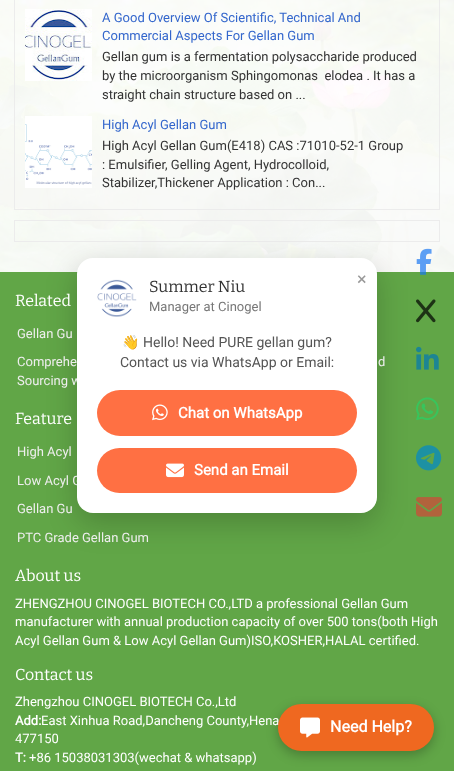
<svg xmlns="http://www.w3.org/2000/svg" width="454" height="771">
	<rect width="100%" height="100%" fill="#FFFFFF" />
	<image x="0" y="0" width="454" height="272" href="assets/img1.png" />
	<rect x="14.5" y="-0.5" width="425" height="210" fill="none" stroke="#ECECEC" />
	<image x="25" y="9" width="67" height="72" href="assets/img2.png" />
	<g font-family="Roboto" font-size="13" fill="#3366CC">
		<text x="102" y="22">A Good Overview Of Scientific, Technical And</text>
		<text x="102" y="40">Commercial Aspects For Gellan Gum</text>
	</g>
	<g font-family="Roboto" font-size="13" fill="#333333">
		<text x="102" y="61">Gellan gum is a fermentation polysaccharide produced</text>
		<text x="102" y="80" xml:space="preserve">by the microorganism Sphingomonas  elodea . It has a</text>
		<text x="102" y="99">straight chain structure based on ...</text>
	</g>
	<image x="25" y="116" width="67" height="72" href="assets/img3.png" />
	<text x="102" y="129" font-family="Roboto" font-size="13" fill="#3366CC">High Acyl Gellan Gum</text>
	<g font-family="Roboto" font-size="13" fill="#333333">
		<text x="102" y="150">High Acyl Gellan Gum(E418) CAS :71010-52-1 Group</text>
		<text x="102" y="169">: Emulsifier, Gelling Agent, Hydrocolloid,</text>
		<text x="102" y="187">Stabilizer,Thickener Application : Con...</text>
	</g>
	<rect x="14.5" y="220.5" width="425" height="21" fill="none" stroke="#ECECEC" />
	<rect x="0" y="272" width="454" height="499" fill="#61A647" />
	<rect x="77" y="268" width="300" height="255" rx="16" fill="#000000" fill-opacity="0.2" filter="blur(15px)" />
	<g font-family="Roboto" font-size="13" fill="#EEEEEE">
		<text x="17" y="385">Sourcing w</text>
		<text x="17" y="485">Low Acyl G</text>
	</g>
	<rect x="77" y="258" width="300" height="255" rx="16" fill="#FFFFFF" />
	<image x="97" y="279" width="40" height="38" href="assets/img4.png" />
	<text x="149" y="292" font-family="Bitter" font-size="16" font-weight="100" fill="#333333">Summer Niu</text>
	<text x="149" y="311" font-family="Roboto" font-size="13" fill="#777777">Manager at Cinogel</text>
	<text x="357" y="285" font-family="Roboto" font-size="18" fill="#999999">×</text>
	<text x="122" y="347" font-family="Noto Color Emoji" font-size="14" fill="#555555">👋</text>
	<g font-family="Roboto" font-size="14" fill="#555555">
		<text x="143" y="347">Hello! Need PURE gellan gum?</text>
		<text x="120" y="367">Contact us via WhatsApp or Email:</text>
	</g>
	<rect x="97" y="390" width="260" height="46" rx="23" fill="#FF7043" />
	<image x="152" y="404" width="16" height="17" href="assets/img5.png" />
	<text x="178" y="418" font-family="Roboto" font-size="15" font-weight="700" fill="#FFFFFF">Chat on WhatsApp</text>
	<rect x="97" y="448" width="260" height="45" rx="22.5" fill="#FF7043" />
	<image x="166" y="463" width="18" height="15" href="assets/img6.png" />
	<text x="194" y="475" font-family="Roboto" font-size="15" font-weight="700" fill="#FFFFFF">Send an Email</text>
	<rect x="278" y="708" width="156" height="47" rx="23.5" fill="#000000" fill-opacity="0.25" filter="blur(6px)" />
	<text x="41" y="725" font-family="Roboto" font-size="13" fill="#FFFFFF">East Xinhua Road,Dancheng County,Hena</text>
	<rect x="278" y="704" width="156" height="47" rx="23.5" fill="#EF6820" />
	<image x="300" y="717" width="20" height="21" href="assets/img7.png" />
	<text x="330" y="732" font-family="Roboto" font-size="16" font-weight="700" fill="#FFFFFF">Need Help?</text>
	<text x="15" y="306" font-family="Bitter" font-size="16" font-weight="100" fill="#FFFFFF">Related</text>
	<g font-family="Roboto" font-size="13" fill="#EEEEEE">
		<text x="17" y="338">Gellan Gu</text>
		<text x="17" y="366">Comprehe</text>
		<text x="378" y="366">d</text>
	</g>
	<text x="15" y="424" font-family="Bitter" font-size="16" font-weight="100" fill="#FFFFFF">Feature</text>
	<g font-family="Roboto" font-size="13" fill="#EEEEEE">
		<text x="17" y="456">High Acyl</text>
		<text x="17" y="513">Gellan Gu</text>
		<text x="17" y="542">PTC Grade Gellan Gum</text>
	</g>
	<image x="416" y="248" width="16" height="27" href="assets/img8.png" />
	<image x="416" y="299" width="20" height="24" href="assets/img9.png" />
	<image x="416" y="346" width="23" height="24" href="assets/img10.png" />
	<image x="416" y="397" width="23" height="23" href="assets/img11.png" />
	<image x="416" y="445" width="26" height="26" href="assets/img12.png" />
	<image x="416" y="497" width="26" height="20" href="assets/img13.png" />
	<text x="15" y="581" font-family="Bitter" font-size="16" font-weight="100" fill="#FFFFFF">About us</text>
	<g font-family="Roboto" font-size="13" fill="#FFFFFF">
		<text x="15" y="608">ZHENGZHOU CINOGEL BIOTECH CO.,LTD a professional Gellan Gum</text>
		<text x="15" y="626">manufacturer with annual production capacity of over 500 tons(both High</text>
		<text x="15" y="645">Acyl Gellan Gum &amp; Low Acyl Gellan Gum)ISO,KOSHER,HALAL certified.</text>
	</g>
	<text x="15" y="680" font-family="Bitter" font-size="16" font-weight="100" fill="#FFFFFF">Contact us</text>
	<text x="15" y="706" font-family="Roboto" font-size="13" fill="#FFFFFF">Zhengzhou CINOGEL BIOTECH Co.,Ltd</text>
	<text x="15" y="725" font-family="Roboto" font-size="13" font-weight="700" fill="#FFFFFF">Add:</text>
	<text x="15" y="743" font-family="Roboto" font-size="13" fill="#FFFFFF">477150</text>
	<text x="15" y="762" font-family="Roboto" font-size="13" font-weight="700" fill="#FFFFFF">T:</text>
	<text x="29" y="762" font-family="Roboto" font-size="13" fill="#FFFFFF">+86 15038031303(wechat &amp; whatsapp)</text>
</svg>
